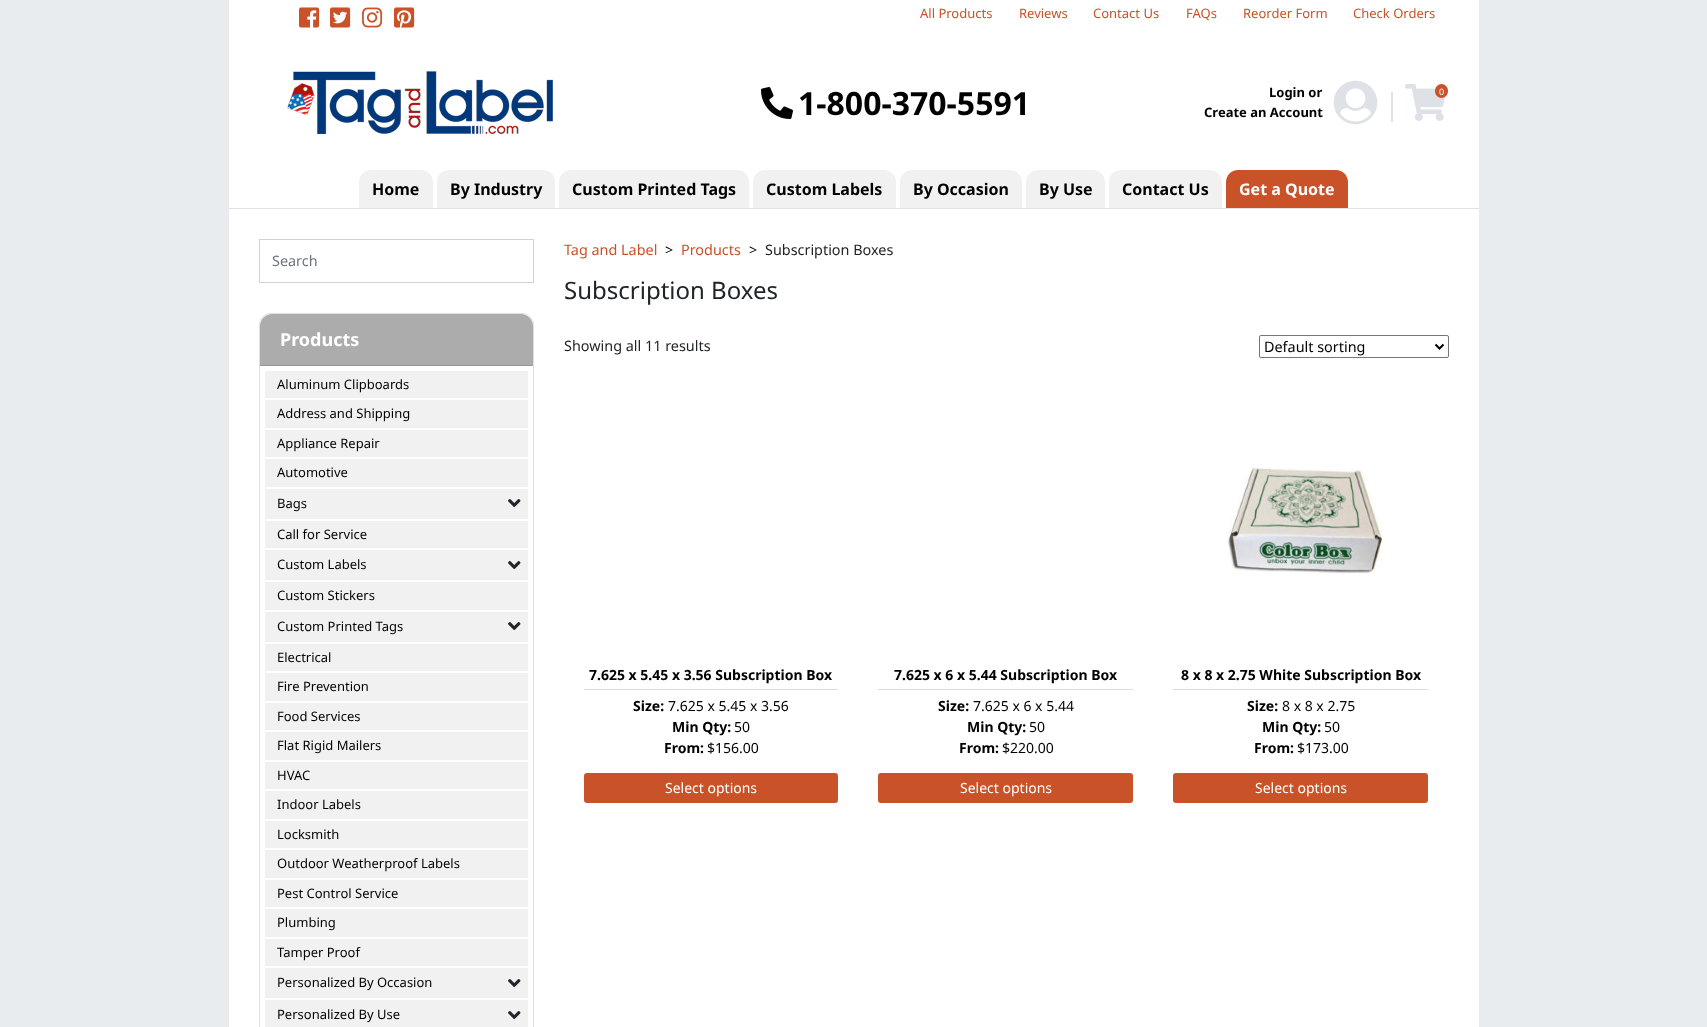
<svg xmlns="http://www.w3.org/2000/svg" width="1707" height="1027">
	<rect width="100%" height="100%" fill="#E9ECEF" />
	<rect x="229" y="0" width="1250" height="1027" fill="#FFFFFF" />
	<image x="299" y="7" width="21" height="21" href="assets/img1.png" />
	<image x="330" y="7" width="21" height="21" href="assets/img2.png" />
	<image x="362" y="7" width="21" height="21" href="assets/img3.png" />
	<image x="394" y="7" width="21" height="21" href="assets/img4.png" />
	<g font-family="Noto Sans" font-size="13" fill="#C95228">
		<text x="920" y="18">All Products</text>
		<text x="1019" y="18">Reviews</text>
		<text x="1093" y="18">Contact Us</text>
		<text x="1186" y="18">FAQs</text>
		<text x="1243" y="18">Reorder Form</text>
		<text x="1353" y="18">Check Orders</text>
	</g>
	<image x="287" y="69" width="266" height="68" href="assets/img5.png" />
	<image x="761" y="87" width="32" height="32" href="assets/img6.png" />
	<text x="798" y="115" font-family="Noto Sans" font-size="32" font-weight="700" fill="#000000">1-800-370-5591</text>
	<g font-family="Noto Sans" font-size="13" font-weight="700" fill="#000000">
		<text x="1269" y="97">Login or</text>
		<text x="1204" y="117">Create an Account</text>
	</g>
	<image x="1333" y="80" width="45" height="45" href="assets/img7.png" />
	<rect x="1391" y="92" width="2" height="30" fill="#DEE2E6" />
	<image x="1405" y="84" width="41" height="37" href="assets/img8.png" />
	<rect x="1435" y="84" width="13" height="14" rx="6.5" fill="#C95228" />
	<text x="1439" y="95" font-family="Noto Sans" font-size="9" fill="#FFFFFF">0</text>
	<rect x="229" y="208" width="1250" height="1" fill="#DEE2E6" />
	<path d="M371 170H421C427.5 170 433 175.5 433 182V208H359V182C359 175.5 364.5 170 371 170Z" fill="#F1F1F1" />
	<text x="372" y="195" font-family="Noto Sans" font-size="16" font-weight="700" fill="#000000">Home</text>
	<path d="M449 170H543C549.5 170 555 175.5 555 182V208H437V182C437 175.5 442.5 170 449 170Z" fill="#F1F1F1" />
	<text x="450" y="195" font-family="Noto Sans" font-size="16" font-weight="700" fill="#000000">By Industry</text>
	<path d="M571 170H737C743.5 170 749 175.5 749 182V208H559V182C559 175.5 564.5 170 571 170Z" fill="#F1F1F1" />
	<text x="572" y="195" font-family="Noto Sans" font-size="16" font-weight="700" fill="#000000">Custom Printed Tags</text>
	<path d="M765 170H884C890.5 170 896 175.5 896 182V208H753V182C753 175.5 758.5 170 765 170Z" fill="#F1F1F1" />
	<text x="766" y="195" font-family="Noto Sans" font-size="16" font-weight="700" fill="#000000">Custom Labels</text>
	<path d="M912 170H1010C1016.5 170 1022 175.5 1022 182V208H900V182C900 175.5 905.5 170 912 170Z" fill="#F1F1F1" />
	<text x="913" y="195" font-family="Noto Sans" font-size="16" font-weight="700" fill="#000000">By Occasion</text>
	<path d="M1038 170H1093C1099.5 170 1105 175.5 1105 182V208H1026V182C1026 175.5 1031.5 170 1038 170Z" fill="#F1F1F1" />
	<text x="1039" y="195" font-family="Noto Sans" font-size="16" font-weight="700" fill="#000000">By Use</text>
	<path d="M1121 170H1210C1216.5 170 1222 175.5 1222 182V208H1109V182C1109 175.5 1114.5 170 1121 170Z" fill="#F1F1F1" />
	<text x="1122" y="195" font-family="Noto Sans" font-size="16" font-weight="700" fill="#000000">Contact Us</text>
	<path d="M1238 170H1336C1342.5 170 1348 175.5 1348 182V208H1226V182C1226 175.5 1231.5 170 1238 170Z" fill="#C95228" />
	<text x="1239" y="195" font-family="Noto Sans" font-size="16" font-weight="700" fill="#FFFFFF">Get a Quote</text>
	<rect x="259.5" y="239.5" width="274" height="43" fill="none" stroke="#CED4DA" />
	<text x="272" y="266" font-family="Noto Sans" font-size="14.4" fill="#6C757D">Search</text>
	<path d="M271 313.5H522C528.5 313.5 533.5 318.5 533.5 325V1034C533.5 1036 532 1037.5 530 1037.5H263C261 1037.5 259.5 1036 259.5 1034V325C259.5 318.5 264.5 313.5 271 313.5Z" fill="none" stroke="#DFDFDF" />
	<path d="M272 314H521C527.5 314 533 319.5 533 326V366H260V326C260 319.5 265.5 314 272 314Z" fill="#ACACAC" />
	<rect x="260" y="365" width="273" height="1" fill="#979797" />
	<text x="280" y="346" font-family="Noto Sans" font-size="18" font-weight="700" fill="#FFFFFF">Products</text>
	<rect x="265" y="371" width="263" height="27" fill="#F1F1F1" />
	<text x="277" y="389" font-family="Noto Sans" font-size="13" fill="#000000">Aluminum Clipboards</text>
	<rect x="265" y="400" width="263" height="28" fill="#F1F1F1" />
	<text x="277" y="418" font-family="Noto Sans" font-size="13" fill="#000000">Address and Shipping</text>
	<rect x="265" y="430" width="263" height="27" fill="#F1F1F1" />
	<text x="277" y="448" font-family="Noto Sans" font-size="13" fill="#000000">Appliance Repair</text>
	<rect x="265" y="459" width="263" height="28" fill="#F1F1F1" />
	<text x="277" y="477" font-family="Noto Sans" font-size="13" fill="#000000">Automotive</text>
	<rect x="265" y="489" width="263" height="30" fill="#F1F1F1" />
	<text x="277" y="508" font-family="Noto Sans" font-size="13" fill="#000000">Bags</text>
	<image x="508" y="499" width="13" height="8" href="assets/img9.png" />
	<rect x="265" y="521" width="263" height="27" fill="#F1F1F1" />
	<text x="277" y="539" font-family="Noto Sans" font-size="13" fill="#000000">Call for Service</text>
	<rect x="265" y="550" width="263" height="30" fill="#F1F1F1" />
	<text x="277" y="569" font-family="Noto Sans" font-size="13" fill="#000000">Custom Labels</text>
	<image x="508" y="561" width="13" height="8" href="assets/img9.png" />
	<rect x="265" y="582" width="263" height="28" fill="#F1F1F1" />
	<text x="277" y="600" font-family="Noto Sans" font-size="13" fill="#000000">Custom Stickers</text>
	<rect x="265" y="612" width="263" height="30" fill="#F1F1F1" />
	<text x="277" y="631" font-family="Noto Sans" font-size="13" fill="#000000">Custom Printed Tags</text>
	<image x="508" y="622" width="13" height="8" href="assets/img9.png" />
	<rect x="265" y="644" width="263" height="27" fill="#F1F1F1" />
	<text x="277" y="662" font-family="Noto Sans" font-size="13" fill="#000000">Electrical</text>
	<rect x="265" y="673" width="263" height="28" fill="#F1F1F1" />
	<text x="277" y="691" font-family="Noto Sans" font-size="13" fill="#000000">Fire Prevention</text>
	<rect x="265" y="703" width="263" height="27" fill="#F1F1F1" />
	<text x="277" y="721" font-family="Noto Sans" font-size="13" fill="#000000">Food Services</text>
	<rect x="265" y="732" width="263" height="28" fill="#F1F1F1" />
	<text x="277" y="750" font-family="Noto Sans" font-size="13" fill="#000000">Flat Rigid Mailers</text>
	<rect x="265" y="762" width="263" height="27" fill="#F1F1F1" />
	<text x="277" y="780" font-family="Noto Sans" font-size="13" fill="#000000">HVAC</text>
	<rect x="265" y="791" width="263" height="28" fill="#F1F1F1" />
	<text x="277" y="809" font-family="Noto Sans" font-size="13" fill="#000000">Indoor Labels</text>
	<rect x="265" y="821" width="263" height="27" fill="#F1F1F1" />
	<text x="277" y="839" font-family="Noto Sans" font-size="13" fill="#000000">Locksmith</text>
	<rect x="265" y="850" width="263" height="28" fill="#F1F1F1" />
	<text x="277" y="868" font-family="Noto Sans" font-size="13" fill="#000000">Outdoor Weatherproof Labels</text>
	<rect x="265" y="880" width="263" height="27" fill="#F1F1F1" />
	<text x="277" y="898" font-family="Noto Sans" font-size="13" fill="#000000">Pest Control Service</text>
	<rect x="265" y="909" width="263" height="28" fill="#F1F1F1" />
	<text x="277" y="927" font-family="Noto Sans" font-size="13" fill="#000000">Plumbing</text>
	<rect x="265" y="939" width="263" height="27" fill="#F1F1F1" />
	<text x="277" y="957" font-family="Noto Sans" font-size="13" fill="#000000">Tamper Proof</text>
	<rect x="265" y="968" width="263" height="30" fill="#F1F1F1" />
	<text x="277" y="987" font-family="Noto Sans" font-size="13" fill="#000000">Personalized By Occasion</text>
	<image x="508" y="979" width="13" height="8" href="assets/img9.png" />
	<rect x="265" y="1000" width="263" height="27" fill="#F1F1F1" />
	<text x="277" y="1019" font-family="Noto Sans" font-size="13" fill="#000000">Personalized By Use</text>
	<image x="508" y="1011" width="13" height="8" href="assets/img9.png" />
	<text x="564" y="255" font-family="Noto Sans" font-size="14.4" fill="#C95228">Tag and Label</text>
	<text x="665" y="255" font-family="Noto Sans" font-size="14.4" fill="#000000">&gt;</text>
	<text x="681" y="255" font-family="Noto Sans" font-size="14.4" fill="#C95228">Products</text>
	<text x="749" y="255" font-family="Noto Sans" font-size="14.4" fill="#000000">&gt;</text>
	<text x="765" y="255" font-family="Noto Sans" font-size="14.4" fill="#212529">Subscription Boxes</text>
	<text x="564" y="299" font-family="Noto Sans" font-size="24" fill="#212529">Subscription Boxes</text>
	<text x="564" y="351" font-family="Noto Sans" font-size="14.4" fill="#212529">Showing all 11 results</text>
	<rect x="1259.5" y="335.5" width="189" height="22" rx="1.5" fill="none" stroke="#767676" />
	<path d="M1435.5 344.5L1439.5 348.5L1443.5 344.5" fill="none" stroke="#000000" stroke-width="2" />
	<text x="1264" y="352" font-family="Noto Sans" font-size="14.4" fill="#000000">Default sorting</text>
	<rect x="584" y="689" width="254" height="1" fill="#DDDBDC" />
	<g font-family="Noto Sans" font-size="14" font-weight="700" fill="#000000">
		<text x="589" y="680">7.625 x 5.45 x 3.56 Subscription Box</text>
		<text x="633" y="711">Size:</text>
	</g>
	<text x="668" y="711" font-family="Noto Sans" font-size="14" fill="#000000">7.625 x 5.45 x 3.56</text>
	<text x="672" y="732" font-family="Noto Sans" font-size="14" font-weight="700" fill="#000000">Min Qty:</text>
	<text x="734" y="732" font-family="Noto Sans" font-size="14" fill="#000000">50</text>
	<text x="664" y="753" font-family="Noto Sans" font-size="14" font-weight="700" fill="#000000">From:</text>
	<text x="707" y="753" font-family="Noto Sans" font-size="14" fill="#000000">$156.00</text>
	<rect x="584" y="773" width="254" height="30" rx="3" fill="#C95228" />
	<text x="665" y="793" font-family="Noto Sans" font-size="14" fill="#FFFFFF">Select options</text>
	<rect x="878" y="689" width="255" height="1" fill="#DDDBDC" />
	<g font-family="Noto Sans" font-size="14" font-weight="700" fill="#000000">
		<text x="894" y="680">7.625 x 6 x 5.44 Subscription Box</text>
		<text x="938" y="711">Size:</text>
	</g>
	<text x="973" y="711" font-family="Noto Sans" font-size="14" fill="#000000">7.625 x 6 x 5.44</text>
	<text x="967" y="732" font-family="Noto Sans" font-size="14" font-weight="700" fill="#000000">Min Qty:</text>
	<text x="1029" y="732" font-family="Noto Sans" font-size="14" fill="#000000">50</text>
	<text x="959" y="753" font-family="Noto Sans" font-size="14" font-weight="700" fill="#000000">From:</text>
	<text x="1002" y="753" font-family="Noto Sans" font-size="14" fill="#000000">$220.00</text>
	<rect x="878" y="773" width="255" height="30" rx="3" fill="#C95228" />
	<text x="960" y="793" font-family="Noto Sans" font-size="14" fill="#FFFFFF">Select options</text>
	<image x="1227" y="467" width="156" height="107" href="assets/img10.png" />
	<rect x="1173" y="689" width="255" height="1" fill="#DDDBDC" />
	<g font-family="Noto Sans" font-size="14" font-weight="700" fill="#000000">
		<text x="1181" y="680">8 x 8 x 2.75 White Subscription Box</text>
		<text x="1247" y="711">Size:</text>
	</g>
	<text x="1282" y="711" font-family="Noto Sans" font-size="14" fill="#000000">8 x 8 x 2.75</text>
	<text x="1262" y="732" font-family="Noto Sans" font-size="14" font-weight="700" fill="#000000">Min Qty:</text>
	<text x="1324" y="732" font-family="Noto Sans" font-size="14" fill="#000000">50</text>
	<text x="1254" y="753" font-family="Noto Sans" font-size="14" font-weight="700" fill="#000000">From:</text>
	<text x="1297" y="753" font-family="Noto Sans" font-size="14" fill="#000000">$173.00</text>
	<rect x="1173" y="773" width="255" height="30" rx="3" fill="#C95228" />
	<text x="1255" y="793" font-family="Noto Sans" font-size="14" fill="#FFFFFF">Select options</text>
</svg>
